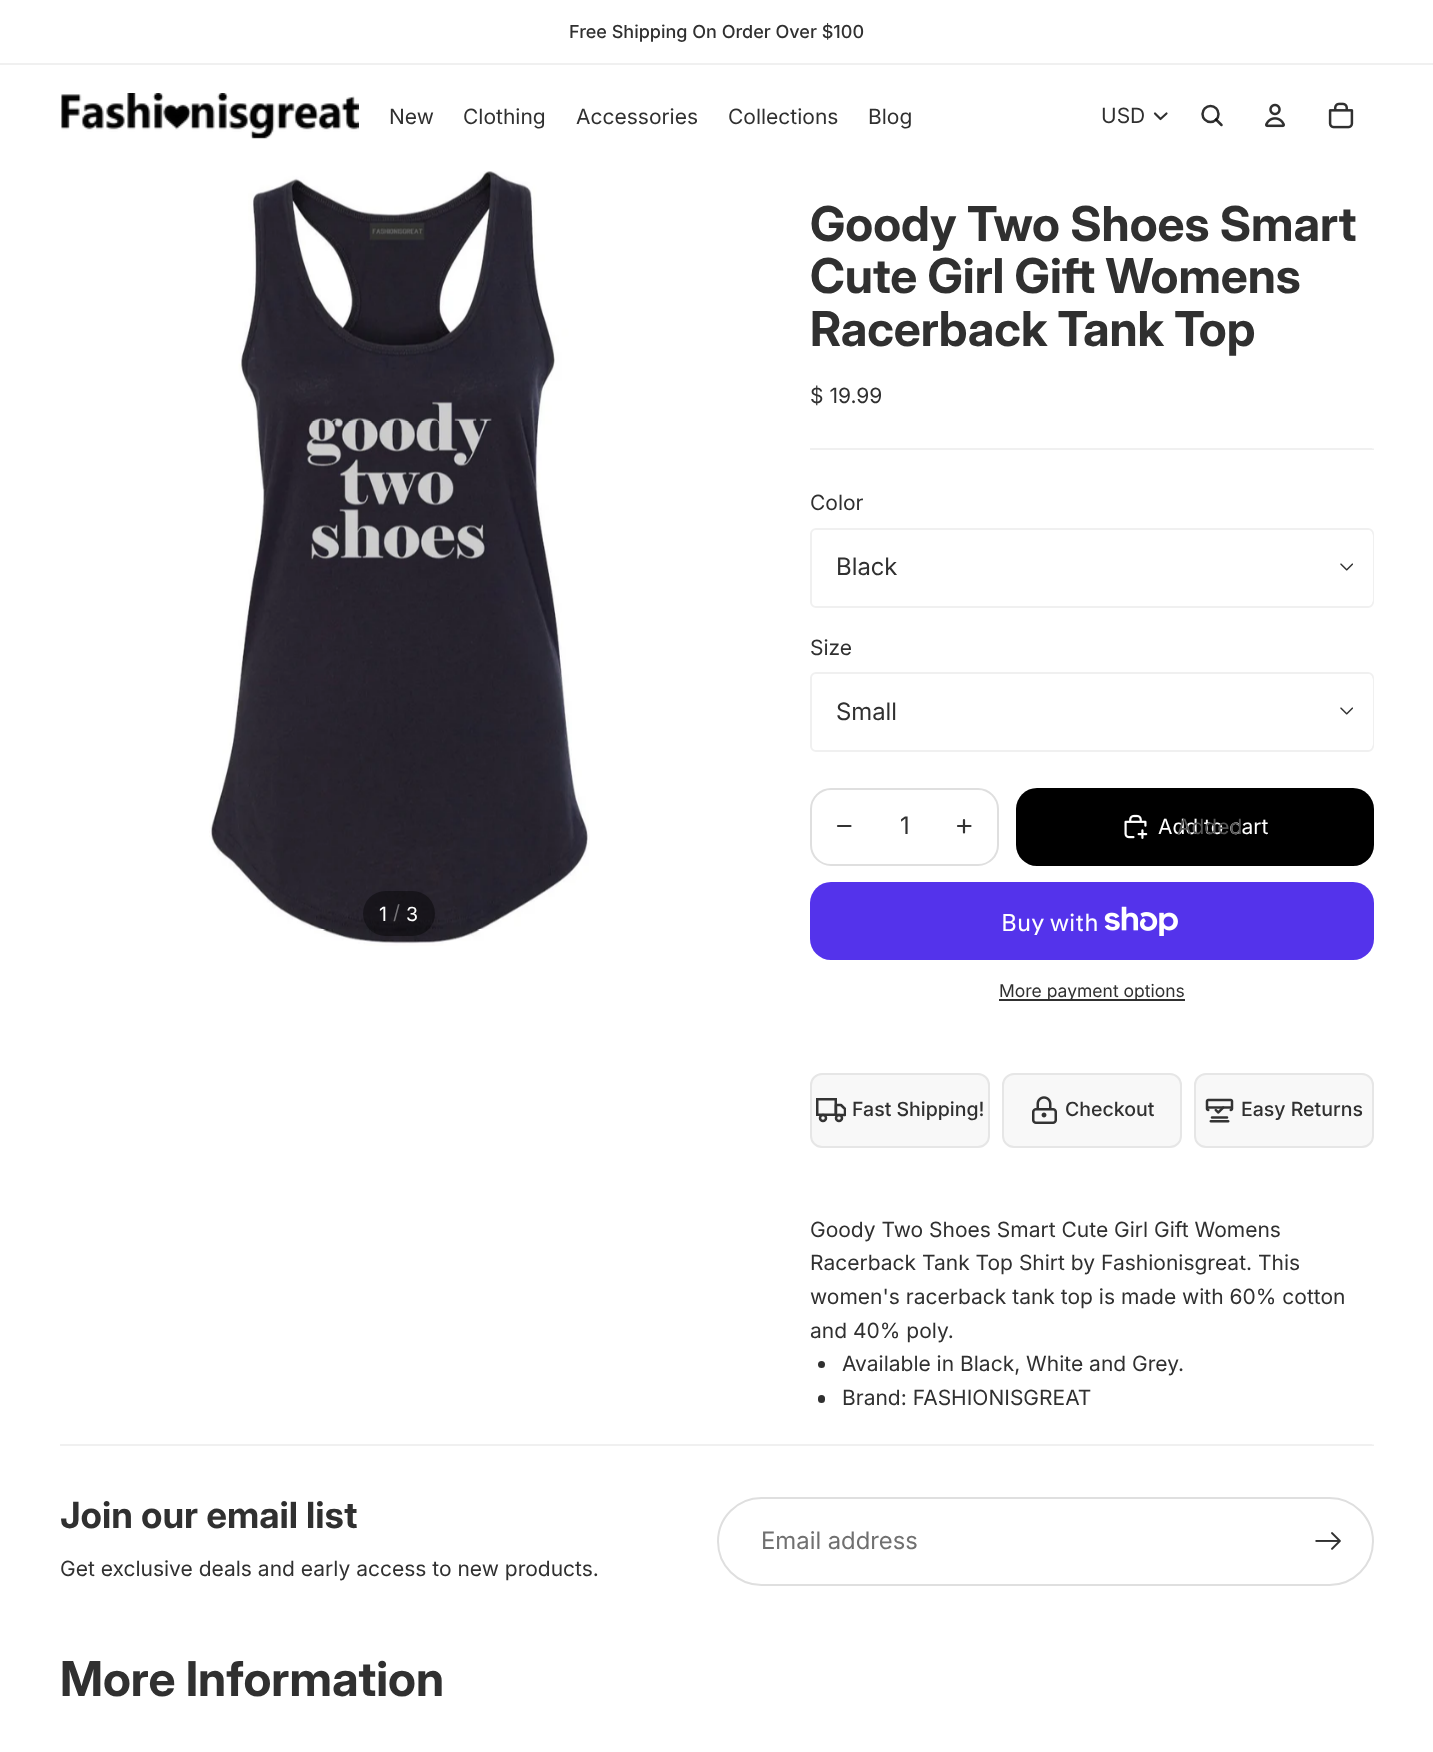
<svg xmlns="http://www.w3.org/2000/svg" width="1433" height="1752">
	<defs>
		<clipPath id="clip1"><rect x="812" y="530" width="561" height="76" rx="5" /></clipPath>
		<clipPath id="clip2"><rect x="812" y="674" width="561" height="76" rx="5" /></clipPath>
		<clipPath id="clip3"><rect x="816" y="1095" width="30" height="30" /></clipPath>
	</defs>
	<rect width="100%" height="100%" fill="#FFFFFF" />
	<rect x="0" y="63" width="1433" height="2" fill="#F0F0F0" />
	<text x="569" y="38" font-family="Inter" font-size="18" font-weight="500" fill="#303030">Free Shipping On Order Over $100</text>
	<image x="61" y="93" width="298" height="46" href="assets/img1.png" />
	<g font-family="Inter" font-size="21" fill="#303030">
		<text x="389" y="124">New</text>
		<text x="463" y="124">Clothing</text>
		<text x="576" y="124">Accessories</text>
		<text x="728" y="124">Collections</text>
		<text x="868" y="124">Blog</text>
		<text x="1101" y="123">USD</text>
	</g>
	<path d="M1166.5 113.5L1160.5 119L1155 113.5" fill="none" stroke="#303030" stroke-width="2.2" stroke-linecap="round" stroke-linejoin="round" />
	<circle cx="1210.5" cy="114" r="8" fill="none" stroke="#303030" stroke-width="2.5" />
	<path d="M1216 119.5L1221.5 125" fill="none" stroke="#000000" stroke-opacity="0.81" stroke-width="2.5" stroke-linecap="round" stroke-linejoin="round" />
	<image x="1265" y="103" width="20" height="25" href="assets/img2.png" />
	<image x="1328" y="102" width="26" height="27" href="assets/img3.png" />
	<image x="209" y="171" width="381" height="775" href="assets/img4.png" />
	<rect x="363" y="891" width="72" height="45" rx="22.5" fill="#000000" fill-opacity="0.4" />
	<text x="379" y="921" font-family="Inter" font-size="19.5" fill="#FFFFFF">1</text>
	<text x="393" y="919" font-family="Inter" font-size="19.5" fill="#757377">/</text>
	<text x="406" y="921" font-family="Inter" font-size="19.5" fill="#FFFFFF">3</text>
	<g font-family="Inter" font-size="48" font-weight="700" fill="#303030">
		<text x="810" y="241">Goody Two Shoes Smart</text>
		<text x="810" y="293">Cute Girl Gift Womens</text>
		<text x="810" y="346">Racerback Tank Top</text>
	</g>
	<text x="810" y="403" font-family="Inter" font-size="21" fill="#303030">$ 19.99</text>
	<path d="M1374 448.5V450L1372.5 448.5Z" fill="#F0F0F0" />
	<path d="M1374 450H810V448H1372Z" fill="#000000" fill-opacity="0.06" />
	<text x="810" y="510" font-family="Inter" font-size="21" fill="#303030">Color</text>
	<rect x="811" y="529" width="562" height="78" rx="5" fill="none" stroke="#F0F0F0" stroke-width="2" />
	<g clip-path="url(#clip1)">
		<rect x="812" y="530" width="561" height="76" rx="6" fill="#FFFFFF" />
	</g>
	<text x="836" y="575" font-family="'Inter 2'" font-size="24" fill="#303030">Black</text>
	<image x="1340" y="563" width="13" height="8" href="assets/img5.png" />
	<text x="810" y="655" font-family="Inter" font-size="21" fill="#303030">Size</text>
	<rect x="811" y="673" width="562" height="78" rx="5" fill="none" stroke="#F0F0F0" stroke-width="2" />
	<g clip-path="url(#clip2)">
		<rect x="812" y="674" width="561" height="76" rx="6" fill="#FFFFFF" />
	</g>
	<text x="836" y="720" font-family="'Inter 2'" font-size="24" fill="#303030">Small</text>
	<image x="1340" y="707" width="13" height="8" href="assets/img5.png" />
	<rect x="811" y="789" width="187" height="76" rx="20" fill="none" stroke="#DFDFDF" stroke-width="2" />
	<path d="M838 826H850.5" fill="none" stroke="#333333" stroke-width="2.2" stroke-linecap="round" />
	<text x="900" y="834" font-family="'Inter 2'" font-size="24" fill="#303030">1</text>
	<path d="M958 826H970.5M964 820V832.5" fill="none" stroke="#333333" stroke-width="2.2" stroke-linecap="round" />
	<rect x="1016" y="788" width="358" height="78" rx="21" fill="#000000" />
	<image x="1124" y="814" width="24" height="25" href="assets/img6.png" />
	<text x="1158" y="834" font-family="Inter" font-size="21" fill="#FFFFFF">Add to cart</text>
	<text x="1177" y="834" font-family="Inter" font-size="21" fill="#555555">Added</text>
	<rect x="810" y="882" width="564" height="78" rx="21" fill="#5433EB" />
	<text x="1001" y="931" font-family="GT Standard" font-size="24" fill="#FFFFFF">Buy with</text>
	<image x="1104" y="906" width="74" height="30" href="assets/img7.png" />
	<rect x="999" y="999" width="186" height="2" fill="#303030" />
	<text x="999" y="997" font-family="Inter" font-size="17.5" fill="#303030">More payment options</text>
	<rect x="811" y="1074" width="178" height="73" rx="11" fill="#F8F8F8" stroke="#E6E6E6" stroke-width="2" />
	<rect x="817.25" y="1099.25" width="18.5" height="15.5" fill="none" stroke="#333333" stroke-width="2.5" />
	<g clip-path="url(#clip3)">
		<path d="M836 1105H841L845 1109V1115H836Z" fill="none" stroke="#333333" stroke-width="2.5" stroke-linecap="round" stroke-linejoin="round" />
	</g>
	<circle cx="823" cy="1118" r="3" fill="none" stroke="#333333" stroke-width="2.5" />
	<circle cx="839" cy="1118" r="3" fill="none" stroke="#333333" stroke-width="2.5" />
	<text x="852" y="1116" font-family="Inter" font-size="19.5" font-weight="500" fill="#303030">Fast Shipping!</text>
	<rect x="1003" y="1074" width="178" height="73" rx="11" fill="#F8F8F8" stroke="#E6E6E6" stroke-width="2" />
	<image x="1032" y="1096" width="25" height="28" href="assets/img8.png" />
	<text x="1065" y="1116" font-family="Inter" font-size="19.5" font-weight="500" fill="#303030">Checkout</text>
	<rect x="1195" y="1074" width="178" height="73" rx="11" fill="#F8F8F8" stroke="#E6E6E6" stroke-width="2" />
	<image x="1205" y="1098" width="29" height="25" href="assets/img9.png" />
	<text x="1241" y="1116" font-family="Inter" font-size="19.5" font-weight="500" fill="#303030">Easy Returns</text>
	<g font-family="Inter" font-size="21" fill="#303030">
		<text x="810" y="1237">Goody Two Shoes Smart Cute Girl Gift Womens</text>
		<text x="810" y="1270">Racerback Tank Top Shirt by Fashionisgreat. This</text>
		<text x="810" y="1304">women's racerback tank top is made with 60% cotton</text>
		<text x="810" y="1338">and 40% poly.</text>
	</g>
	<circle cx="821.5" cy="1364.5" r="3.5" fill="#303030" />
	<text x="842" y="1371" font-family="Inter" font-size="21" fill="#303030">Available in Black, White and Grey.</text>
	<rect x="818" y="1395" width="7" height="8" rx="3.5" fill="#303030" />
	<text x="842" y="1405" font-family="Inter" font-size="21" fill="#303030">Brand: FASHIONISGREAT</text>
	<path d="M1374 1444.5V1446L1372.5 1444.5Z" fill="#F0F0F0" />
	<path d="M1374 1446H60V1444H1372Z" fill="#000000" fill-opacity="0.06" />
	<text x="60" y="1528" font-family="'Inter 2'" font-size="36" font-weight="700" fill="#303030">Join our email list</text>
	<text x="60" y="1576" font-family="Inter" font-size="21" fill="#303030">Get exclusive deals and early access to new products.</text>
	<rect x="718" y="1498" width="655" height="87" rx="43.5" fill="none" stroke="#DFDFDF" stroke-width="2" />
	<text x="761" y="1549" font-family="'Inter 2'" font-size="24" fill="#707070">Email address</text>
	<image x="1315" y="1532" width="26" height="18" href="assets/img10.png" />
	<text x="60" y="1696" font-family="Inter" font-size="48" font-weight="700" fill="#303030">More Information</text>
</svg>
